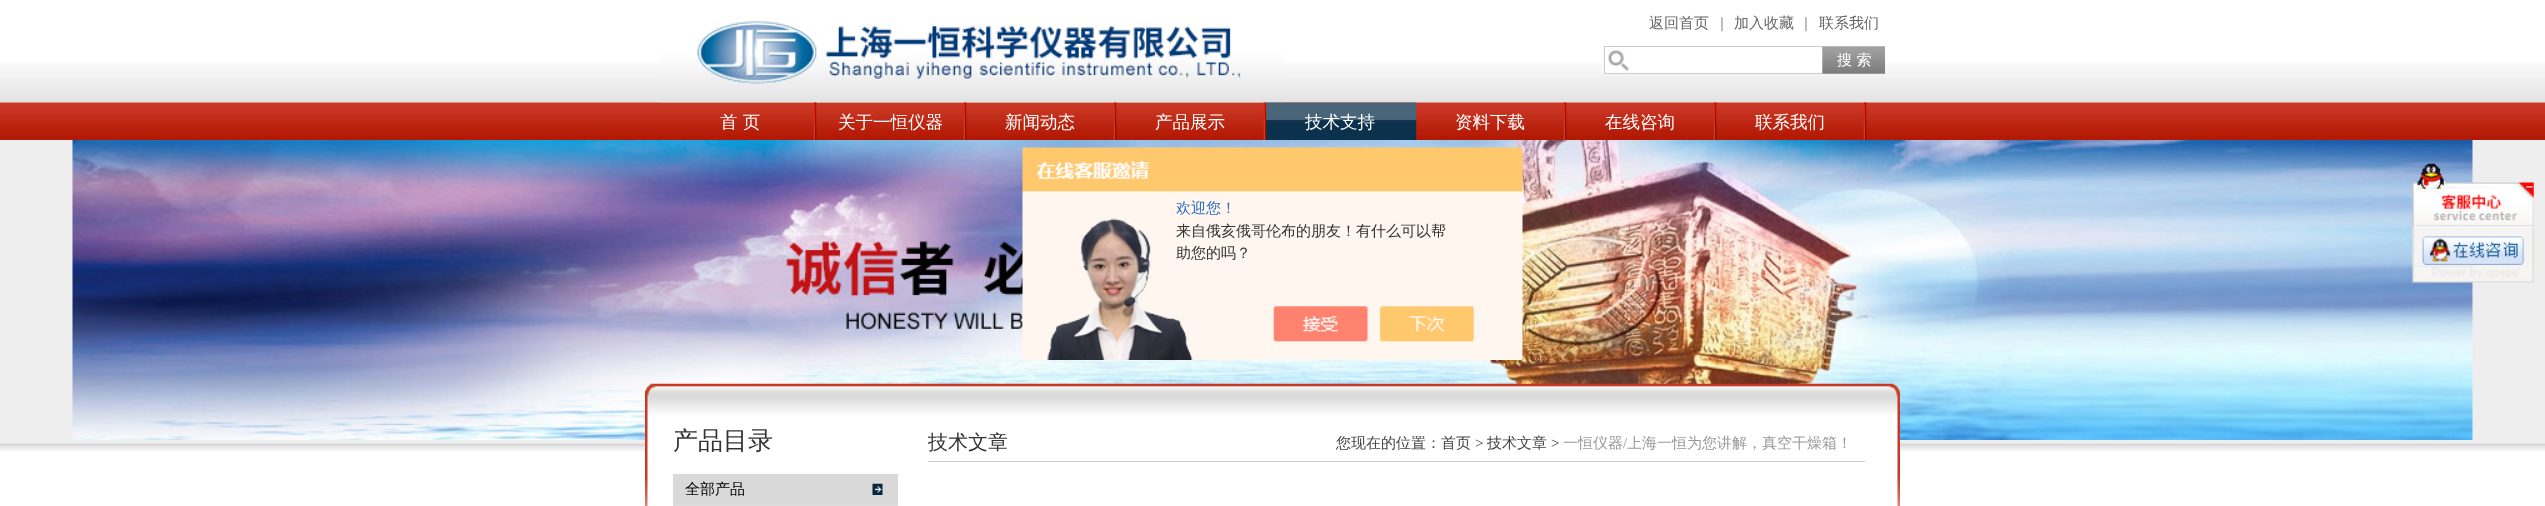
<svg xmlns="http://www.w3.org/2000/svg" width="2545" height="506">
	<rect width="100%" height="100%" fill="#FFFFFF" />
	<image x="0" y="63" width="2545" height="40" href="assets/img1.png" />
	<image x="0" y="102" width="2545" height="38" href="assets/img5.png" />
	<image x="660" y="20" width="625" height="83" href="assets/img2.png" />
	<text x="1649" y="28" font-family="WenQuanYi Zen Hei" font-size="15" font-weight="500" fill="#666666">返回首页</text>
	<text x="1720" y="28" font-family="Liberation Sans" font-size="15" fill="#999999">|</text>
	<text x="1734" y="28" font-family="WenQuanYi Zen Hei" font-size="15" font-weight="500" fill="#666666">加入收藏</text>
	<text x="1804" y="28" font-family="Liberation Sans" font-size="15" fill="#999999">|</text>
	<text x="1819" y="28" font-family="WenQuanYi Zen Hei" font-size="15" font-weight="500" fill="#666666">联系我们</text>
	<rect x="1605" y="63" width="217" height="10" fill="#FFFFFF" />
	<image x="1608" y="47" width="21" height="26" href="assets/img3.png" />
	<rect x="1604.5" y="46.5" width="218" height="27" fill="none" stroke="#CCCCCC" />
	<image x="1822" y="46" width="63" height="28" href="assets/img4.png" />
	<text x="1837" y="65" font-family="WenQuanYi Zen Hei" font-size="15" font-weight="500" fill="#FFFFFF">搜 索</text>
	<image x="813" y="102" width="4" height="38" href="assets/img6.png" />
	<text x="720" y="128" font-family="WenQuanYi Zen Hei" font-size="17.5" font-weight="500" fill="#FFFFFF">首 页</text>
	<image x="963" y="102" width="4" height="38" href="assets/img6.png" />
	<text x="838" y="128" font-family="WenQuanYi Zen Hei" font-size="17.5" font-weight="500" fill="#FFFFFF">关于一恒仪器</text>
	<image x="1113" y="102" width="4" height="38" href="assets/img6.png" />
	<text x="1005" y="128" font-family="WenQuanYi Zen Hei" font-size="17.5" font-weight="500" fill="#FFFFFF">新闻动态</text>
	<image x="1263" y="102" width="4" height="38" href="assets/img6.png" />
	<text x="1155" y="128" font-family="WenQuanYi Zen Hei" font-size="17.5" font-weight="500" fill="#FFFFFF">产品展示</text>
	<image x="1266" y="102" width="151" height="38" href="assets/img7.png" />
	<text x="1305" y="128" font-family="WenQuanYi Zen Hei" font-size="17.5" font-weight="500" fill="#FFFFFF">技术支持</text>
	<image x="1563" y="102" width="4" height="38" href="assets/img8.png" />
	<text x="1455" y="128" font-family="WenQuanYi Zen Hei" font-size="17.5" font-weight="500" fill="#FFFFFF">资料下载</text>
	<image x="1713" y="102" width="4" height="38" href="assets/img8.png" />
	<text x="1605" y="128" font-family="WenQuanYi Zen Hei" font-size="17.5" font-weight="500" fill="#FFFFFF">在线咨询</text>
	<image x="1863" y="102" width="4" height="38" href="assets/img8.png" />
	<text x="1755" y="128" font-family="WenQuanYi Zen Hei" font-size="17.5" font-weight="500" fill="#FFFFFF">联系我们</text>
	<image x="0" y="140" width="2545" height="312" href="assets/img9.png" />
	<image x="72" y="140" width="2401" height="300" href="assets/img10.png" />
	<image x="1022" y="147" width="501" height="213" href="assets/img11.png" />
	<text x="1176" y="213" font-family="WenQuanYi Zen Hei" font-size="15" font-weight="500" fill="#2E6EC6">欢迎您！</text>
	<g font-family="WenQuanYi Zen Hei" font-size="15" font-weight="500" fill="#333333">
		<text x="1176" y="236">来自俄亥俄哥伦布的朋友！有什么可以帮</text>
		<text x="1176" y="258">助您的吗？</text>
	</g>
	<image x="2412" y="227" width="122" height="40" href="assets/img13.png" />
	<image x="2412" y="163" width="122" height="65" href="assets/img12.png" />
	<image x="2422" y="236" width="102" height="29" href="assets/img14.png" />
	<image x="2412" y="266" width="122" height="17" href="assets/img15.png" />
	<image x="645" y="383" width="1255" height="123" href="assets/img16.png" />
	<text x="673" y="449" font-family="WenQuanYi Zen Hei" font-size="25" font-weight="500" fill="#333333">产品目录</text>
	<rect x="673" y="474" width="225" height="31" fill="#D9D9D9" />
	<image x="872" y="483" width="11" height="12" href="assets/img17.png" />
	<rect x="673" y="505" width="225" height="1" fill="#DDDDDD" />
	<text x="685" y="494" font-family="WenQuanYi Zen Hei" font-size="15" font-weight="500" fill="#000000">全部产品</text>
	<rect x="928" y="461" width="937" height="1" fill="#CCCCCC" />
	<text x="928" y="449" font-family="WenQuanYi Zen Hei" font-size="20" font-weight="500" fill="#333333">技术文章</text>
	<text x="1336" y="448" font-family="WenQuanYi Zen Hei" font-size="15" font-weight="500" fill="#444444">您现在的位置：首页</text>
	<text x="1475" y="448" font-family="Liberation Serif" font-size="15" fill="#444444">&gt;</text>
	<text x="1487" y="448" font-family="WenQuanYi Zen Hei" font-size="15" font-weight="500" fill="#444444">技术文章</text>
	<text x="1551" y="448" font-family="Liberation Serif" font-size="15" fill="#444444">&gt;</text>
	<text x="1563" y="448" font-family="WenQuanYi Zen Hei" font-size="15" font-weight="500" fill="#999999">一恒仪器</text>
	<text x="1623" y="448" font-family="Liberation Serif" font-size="15" fill="#999999">/</text>
	<text x="1627" y="448" font-family="WenQuanYi Zen Hei" font-size="15" font-weight="500" fill="#999999">上海一恒为您讲解，真空干燥箱！</text>
</svg>
